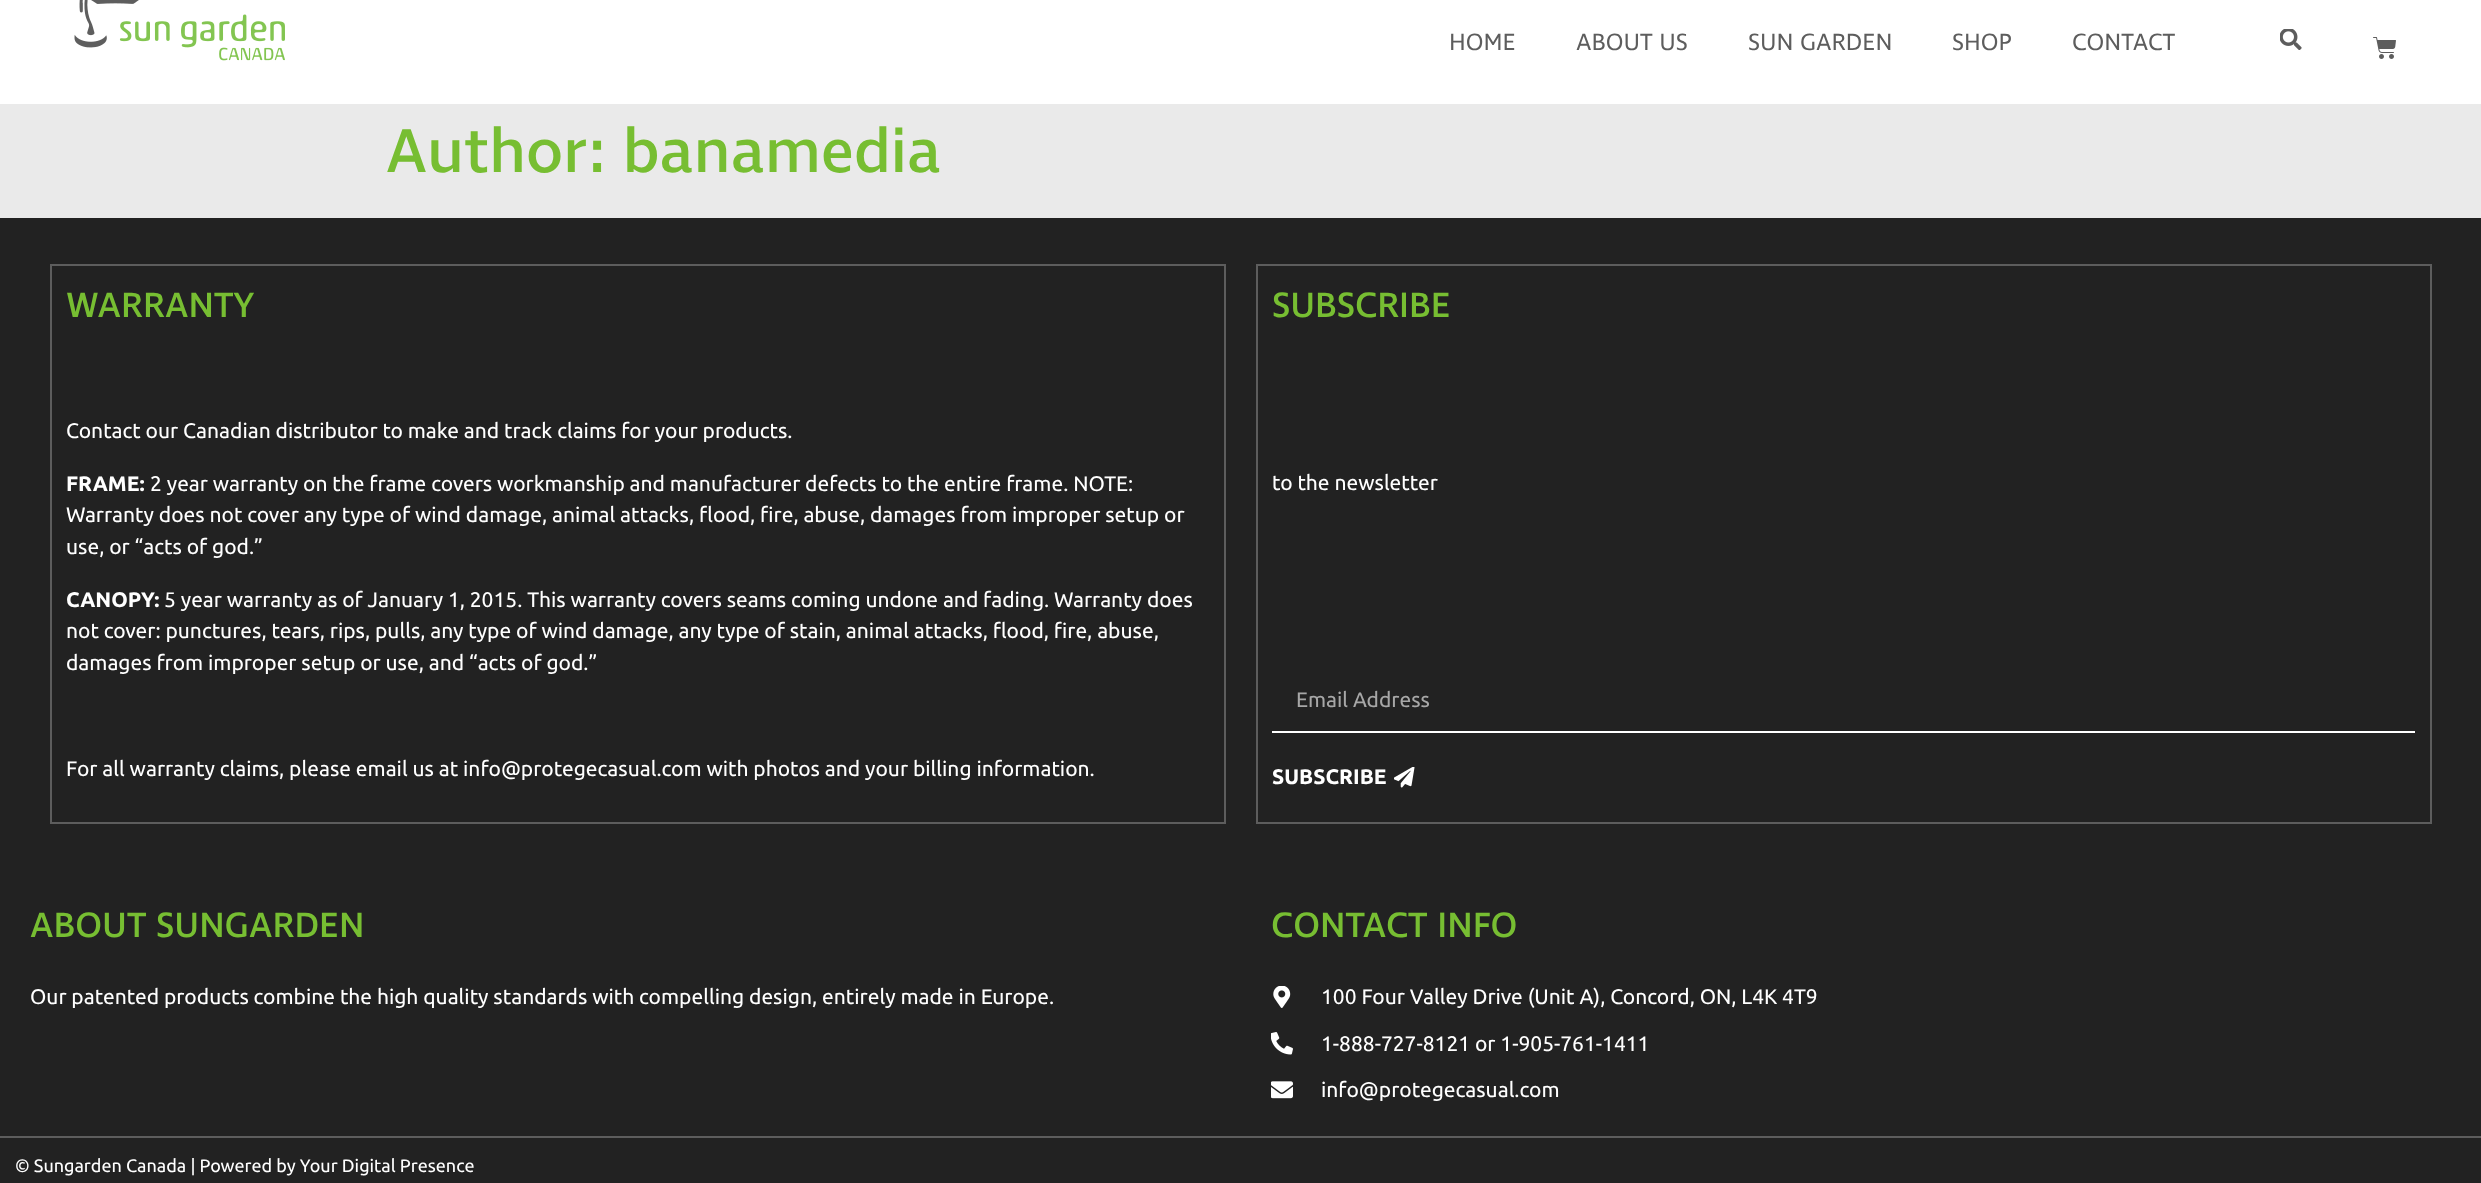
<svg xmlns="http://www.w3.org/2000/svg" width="2481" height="1183">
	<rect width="100%" height="100%" fill="#EAEAEA" />
	<rect x="0" y="0" width="2481" height="104" fill="#FFFFFF" />
	<image x="74" y="0" width="211" height="61" href="assets/img1.png" />
	<g font-family="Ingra" font-size="24" fill="#5D5D5D">
		<text x="1449" y="50">HOME</text>
		<text x="1576" y="50">ABOUT US</text>
		<text x="1748" y="50">SUN GARDEN</text>
		<text x="1952" y="50">SHOP</text>
		<text x="2072" y="50">CONTACT</text>
	</g>
	<image x="2280" y="29" width="22" height="21" href="assets/img2.png" />
	<image x="2373" y="37" width="23" height="22" href="assets/img3.png" />
	<text x="386" y="172" font-family="Ingra" font-size="63" font-weight="500" fill="#77BE32">Author: banamedia</text>
	<rect x="0" y="218" width="2481" height="918" fill="#222222" />
	<rect x="51" y="265" width="1174" height="558" fill="none" stroke="#5D5D5D" stroke-width="2" />
	<text x="66" y="317" font-family="Ingra" font-size="36" font-weight="500" fill="#77BE32">WARRANTY</text>
	<text x="66" y="438" font-family="Ubuntu" font-size="21" fill="#FFFFFF">Contact our Canadian distributor to make and track claims for your products.</text>
	<text x="66" y="491" font-family="Ubuntu" font-size="21" font-weight="700" fill="#FFFFFF">FRAME:</text>
	<g font-family="Ubuntu" font-size="21" fill="#FFFFFF">
		<text x="150" y="491">2 year warranty on the frame covers workmanship and manufacturer defects to the entire frame. NOTE:</text>
		<text x="66" y="522">Warranty does not cover any type of wind damage, animal attacks, flood, fire, abuse, damages from improper setup or</text>
		<text x="66" y="554">use, or “acts of god.”</text>
	</g>
	<text x="66" y="607" font-family="Ubuntu" font-size="21" font-weight="700" fill="#FFFFFF">CANOPY:</text>
	<g font-family="Ubuntu" font-size="21" fill="#FFFFFF">
		<text x="164" y="607">5 year warranty as of January 1, 2015. This warranty covers seams coming undone and fading. Warranty does</text>
		<text x="66" y="638">not cover: punctures, tears, rips, pulls, any type of wind damage, any type of stain, animal attacks, flood, fire, abuse,</text>
		<text x="66" y="670">damages from improper setup or use, and “acts of god.”</text>
		<text x="66" y="776">For all warranty claims, please email us at info@protegecasual.com with photos and your billing information.</text>
	</g>
	<rect x="1257" y="265" width="1174" height="558" fill="none" stroke="#5D5D5D" stroke-width="2" />
	<text x="1272" y="317" font-family="Ingra" font-size="36" font-weight="500" fill="#77BE32">SUBSCRIBE</text>
	<text x="1272" y="490" font-family="Ubuntu" font-size="21" fill="#FFFFFF">to the newsletter</text>
	<rect x="1272" y="731" width="1143" height="2" fill="#FFFFFF" />
	<text x="1296" y="707" font-family="Ubuntu" font-size="21" fill="#A7A7A7">Email Address</text>
	<text x="1272" y="784" font-family="Ubuntu" font-size="21" font-weight="700" fill="#FFFFFF">SUBSCRIBE</text>
	<image x="1394" y="767" width="21" height="21" href="assets/img4.png" />
	<text x="30" y="937" font-family="Ingra" font-size="36" font-weight="500" fill="#77BE32">ABOUT SUNGARDEN</text>
	<text x="30" y="1004" font-family="Ubuntu" font-size="21" fill="#FFFFFF">Our patented products combine the high quality standards with compelling design, entirely made in Europe.</text>
	<text x="1271" y="937" font-family="Ingra" font-size="36" font-weight="500" fill="#77BE32">CONTACT INFO</text>
	<image x="1273" y="986" width="18" height="22" href="assets/img5.png" />
	<text x="1321" y="1004" font-family="Ubuntu" font-size="21" fill="#FFFFFF">100 Four Valley Drive (Unit A), Concord, ON, L4K 4T9</text>
	<image x="1271" y="1032" width="22" height="23" href="assets/img6.png" />
	<text x="1321" y="1051" font-family="Ubuntu" font-size="21" fill="#FFFFFF">1-888-727-8121 or 1-905-761-1411</text>
	<image x="1271" y="1081" width="22" height="18" href="assets/img7.png" />
	<text x="1321" y="1097" font-family="Ubuntu" font-size="21" fill="#FFFFFF">info@protegecasual.com</text>
	<rect x="0" y="1138" width="2481" height="45" fill="#222222" />
	<rect x="0" y="1136" width="2481" height="2" fill="#5D5D5D" />
	<text x="15" y="1172" font-family="Ubuntu" font-size="18" fill="#FFFFFF">© Sungarden Canada | Powered by Your Digital Presence</text>
</svg>
